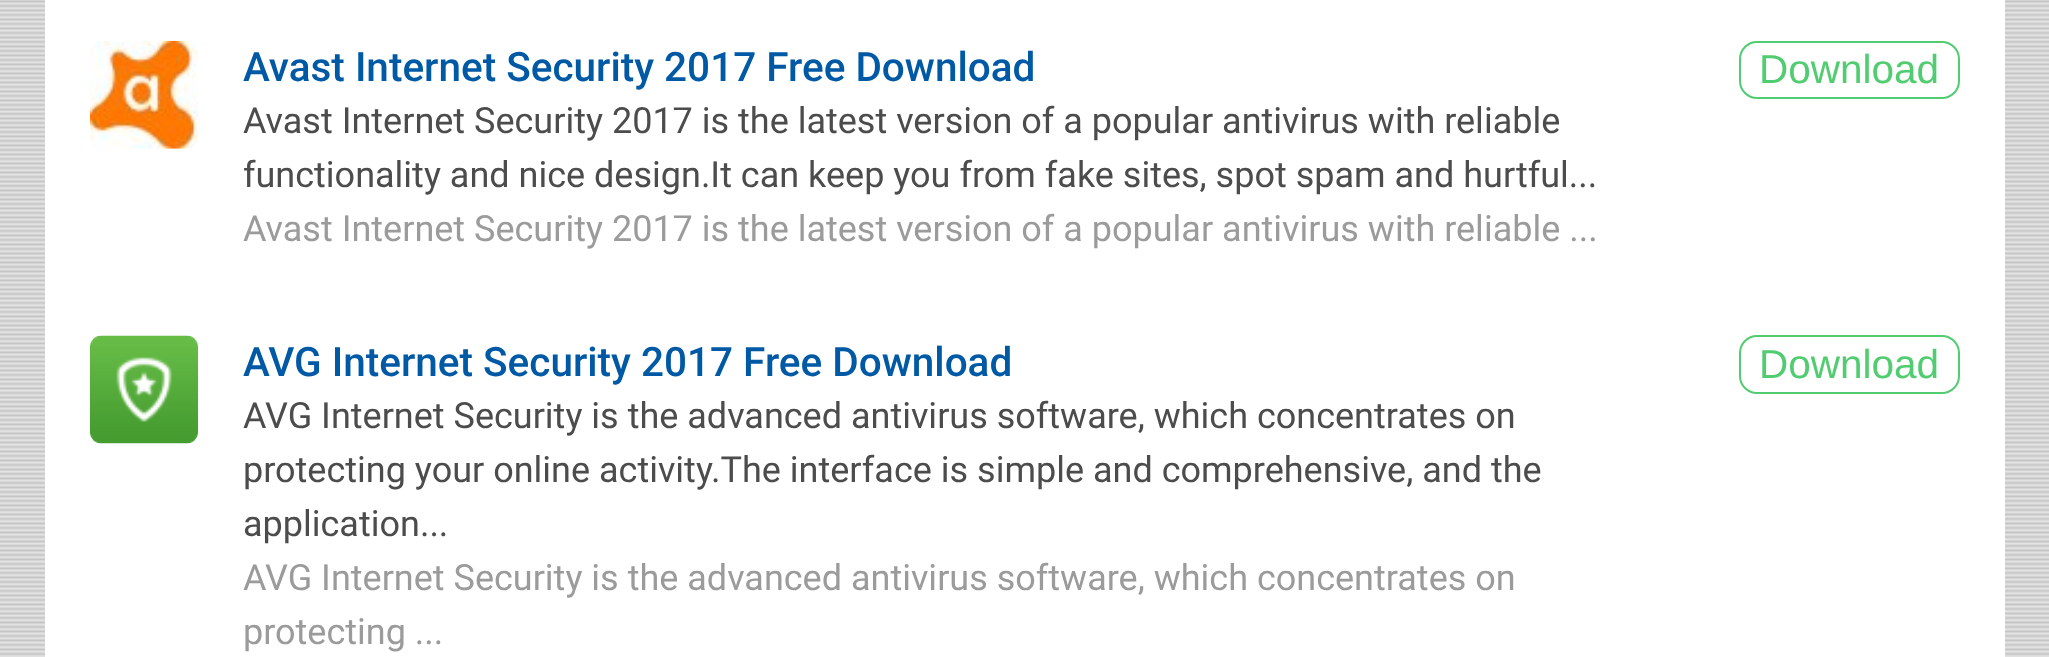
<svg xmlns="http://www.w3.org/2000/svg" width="2049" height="657">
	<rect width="100%" height="100%" fill="#FFFFFF" />
	<image x="0" y="0" width="2049" height="657" href="assets/img1.png" />
	<rect x="45" y="0" width="1960" height="657" fill="#FFFFFF" />
	<image x="90" y="40" width="108" height="109" href="assets/img2.png" />
	<text x="243" y="81" font-family="Roboto" font-size="40.5" font-weight="500" fill="#0059A5">Avast Internet Security 2017 Free Download</text>
	<g font-family="Roboto" font-size="36" fill="#4C4C4C">
		<text x="243" y="133">Avast Internet Security 2017 is the latest version of a popular antivirus with reliable</text>
		<text x="243" y="187">functionality and nice design.It can keep you from fake sites, spot spam and hurtful...</text>
	</g>
	<text x="243" y="241" font-family="Roboto" font-size="36" fill="#9B9B9B">Avast Internet Security 2017 is the latest version of a popular antivirus with reliable ...</text>
	<rect x="1740" y="42" width="219" height="56" rx="17" fill="none" stroke="#51CC71" stroke-width="2" />
	<text x="1759" y="83" font-family="Liberation Sans" font-size="40.5" fill="#51CC71">Download</text>
	<image x="90" y="335" width="108" height="109" href="assets/img3.png" />
	<text x="243" y="376" font-family="Roboto" font-size="40.5" font-weight="500" fill="#0059A5">AVG Internet Security 2017 Free Download</text>
	<g font-family="Roboto" font-size="36" fill="#4C4C4C">
		<text x="243" y="428">AVG Internet Security is the advanced antivirus software, which concentrates on</text>
		<text x="243" y="482">protecting your online activity.The interface is simple and comprehensive, and the</text>
		<text x="243" y="536">application...</text>
	</g>
	<g font-family="Roboto" font-size="36" fill="#9B9B9B">
		<text x="243" y="590">AVG Internet Security is the advanced antivirus software, which concentrates on</text>
		<text x="243" y="644">protecting ...</text>
	</g>
	<rect x="1740" y="336" width="219" height="57" rx="17" fill="none" stroke="#51CC71" stroke-width="2" />
	<text x="1759" y="378" font-family="Liberation Sans" font-size="40.5" fill="#51CC71">Download</text>
</svg>
